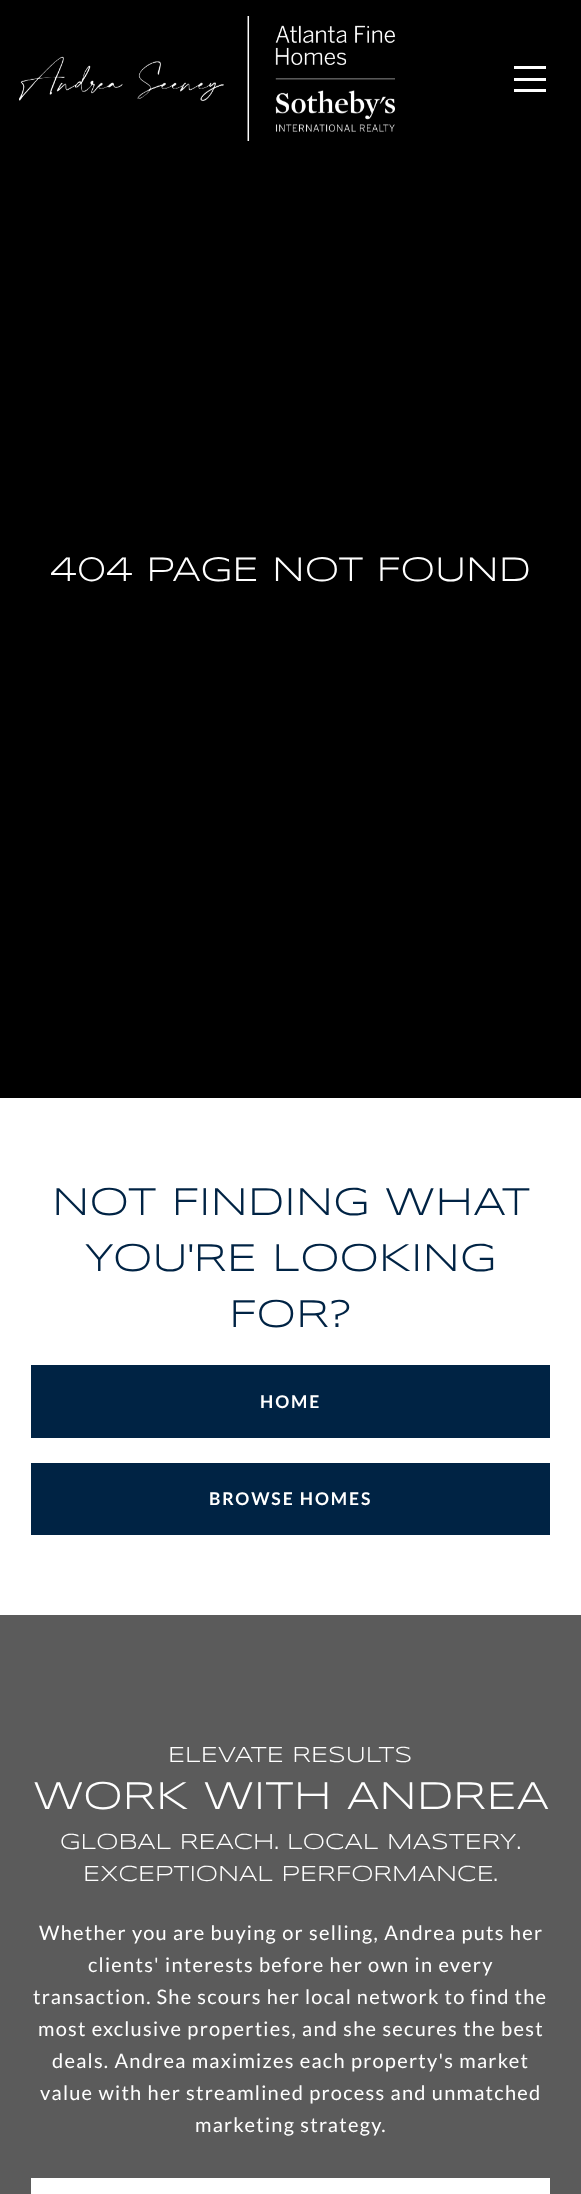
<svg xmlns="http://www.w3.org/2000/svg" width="581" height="2194">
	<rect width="100%" height="100%" fill="#FFFFFF" />
	<rect x="0" y="0" width="581" height="1098" fill="#000000" />
	<image x="19" y="16" width="376" height="125" href="assets/img1.png" />
	<rect x="514" y="78" width="32" height="3" fill="#FFFFFF" />
	<rect x="514" y="66" width="32" height="3" fill="#FFFFFF" />
	<rect x="514" y="89" width="32" height="3" fill="#FFFFFF" />
	<text x="50" y="581" font-family="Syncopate" font-size="35" fill="#FFFFFF">404 PAGE NOT FOUND</text>
	<g font-family="Syncopate" font-size="40" fill="#002344">
		<text x="52" y="1215">NOT FINDING WHAT</text>
		<text x="84" y="1271">YOU'RE LOOKING</text>
		<text x="229" y="1327">FOR?</text>
	</g>
	<rect x="31" y="1365" width="519" height="73" fill="#002344" />
	<text x="260" y="1408" font-family="Lato" font-size="17.5" font-weight="700" letter-spacing="1.9" fill="#FFFFFF">HOME</text>
	<rect x="31" y="1463" width="519" height="72" fill="#002344" />
	<text x="209" y="1505" font-family="Lato" font-size="17.5" font-weight="700" letter-spacing="1.9" fill="#FFFFFF">BROWSE HOMES</text>
	<rect x="0" y="1615" width="581" height="579" fill="#5B5B5B" />
	<text x="168" y="1762" font-family="Syncopate" font-size="22.5" fill="#FFFFFF">ELEVATE RESULTS</text>
	<text x="33" y="1809" font-family="Syncopate" font-size="40" fill="#FFFFFF">WORK WITH ANDREA</text>
	<g font-family="Syncopate" font-size="22.5" fill="#FFFFFF">
		<text x="60" y="1849">GLOBAL REACH. LOCAL MASTERY.</text>
		<text x="83" y="1881">EXCEPTIONAL PERFORMANCE.</text>
	</g>
	<g font-family="Lato" font-size="20" letter-spacing="1.25" fill="#FFFFFF">
		<text x="39" y="1940">Whether you are buying or selling, Andrea puts her</text>
		<text x="88" y="1972">clients' interests before her own in every</text>
		<text x="33" y="2004" word-spacing="-0.25">transaction. She scours her local network to find the</text>
		<text x="38" y="2036">most exclusive properties, and she secures the best</text>
		<text x="52" y="2068">deals. Andrea maximizes each property's market</text>
		<text x="40" y="2100">value with her streamlined process and unmatched</text>
		<text x="195" y="2132">marketing strategy.</text>
	</g>
	<rect x="31" y="2178" width="519" height="16" fill="#FFFFFF" />
</svg>
